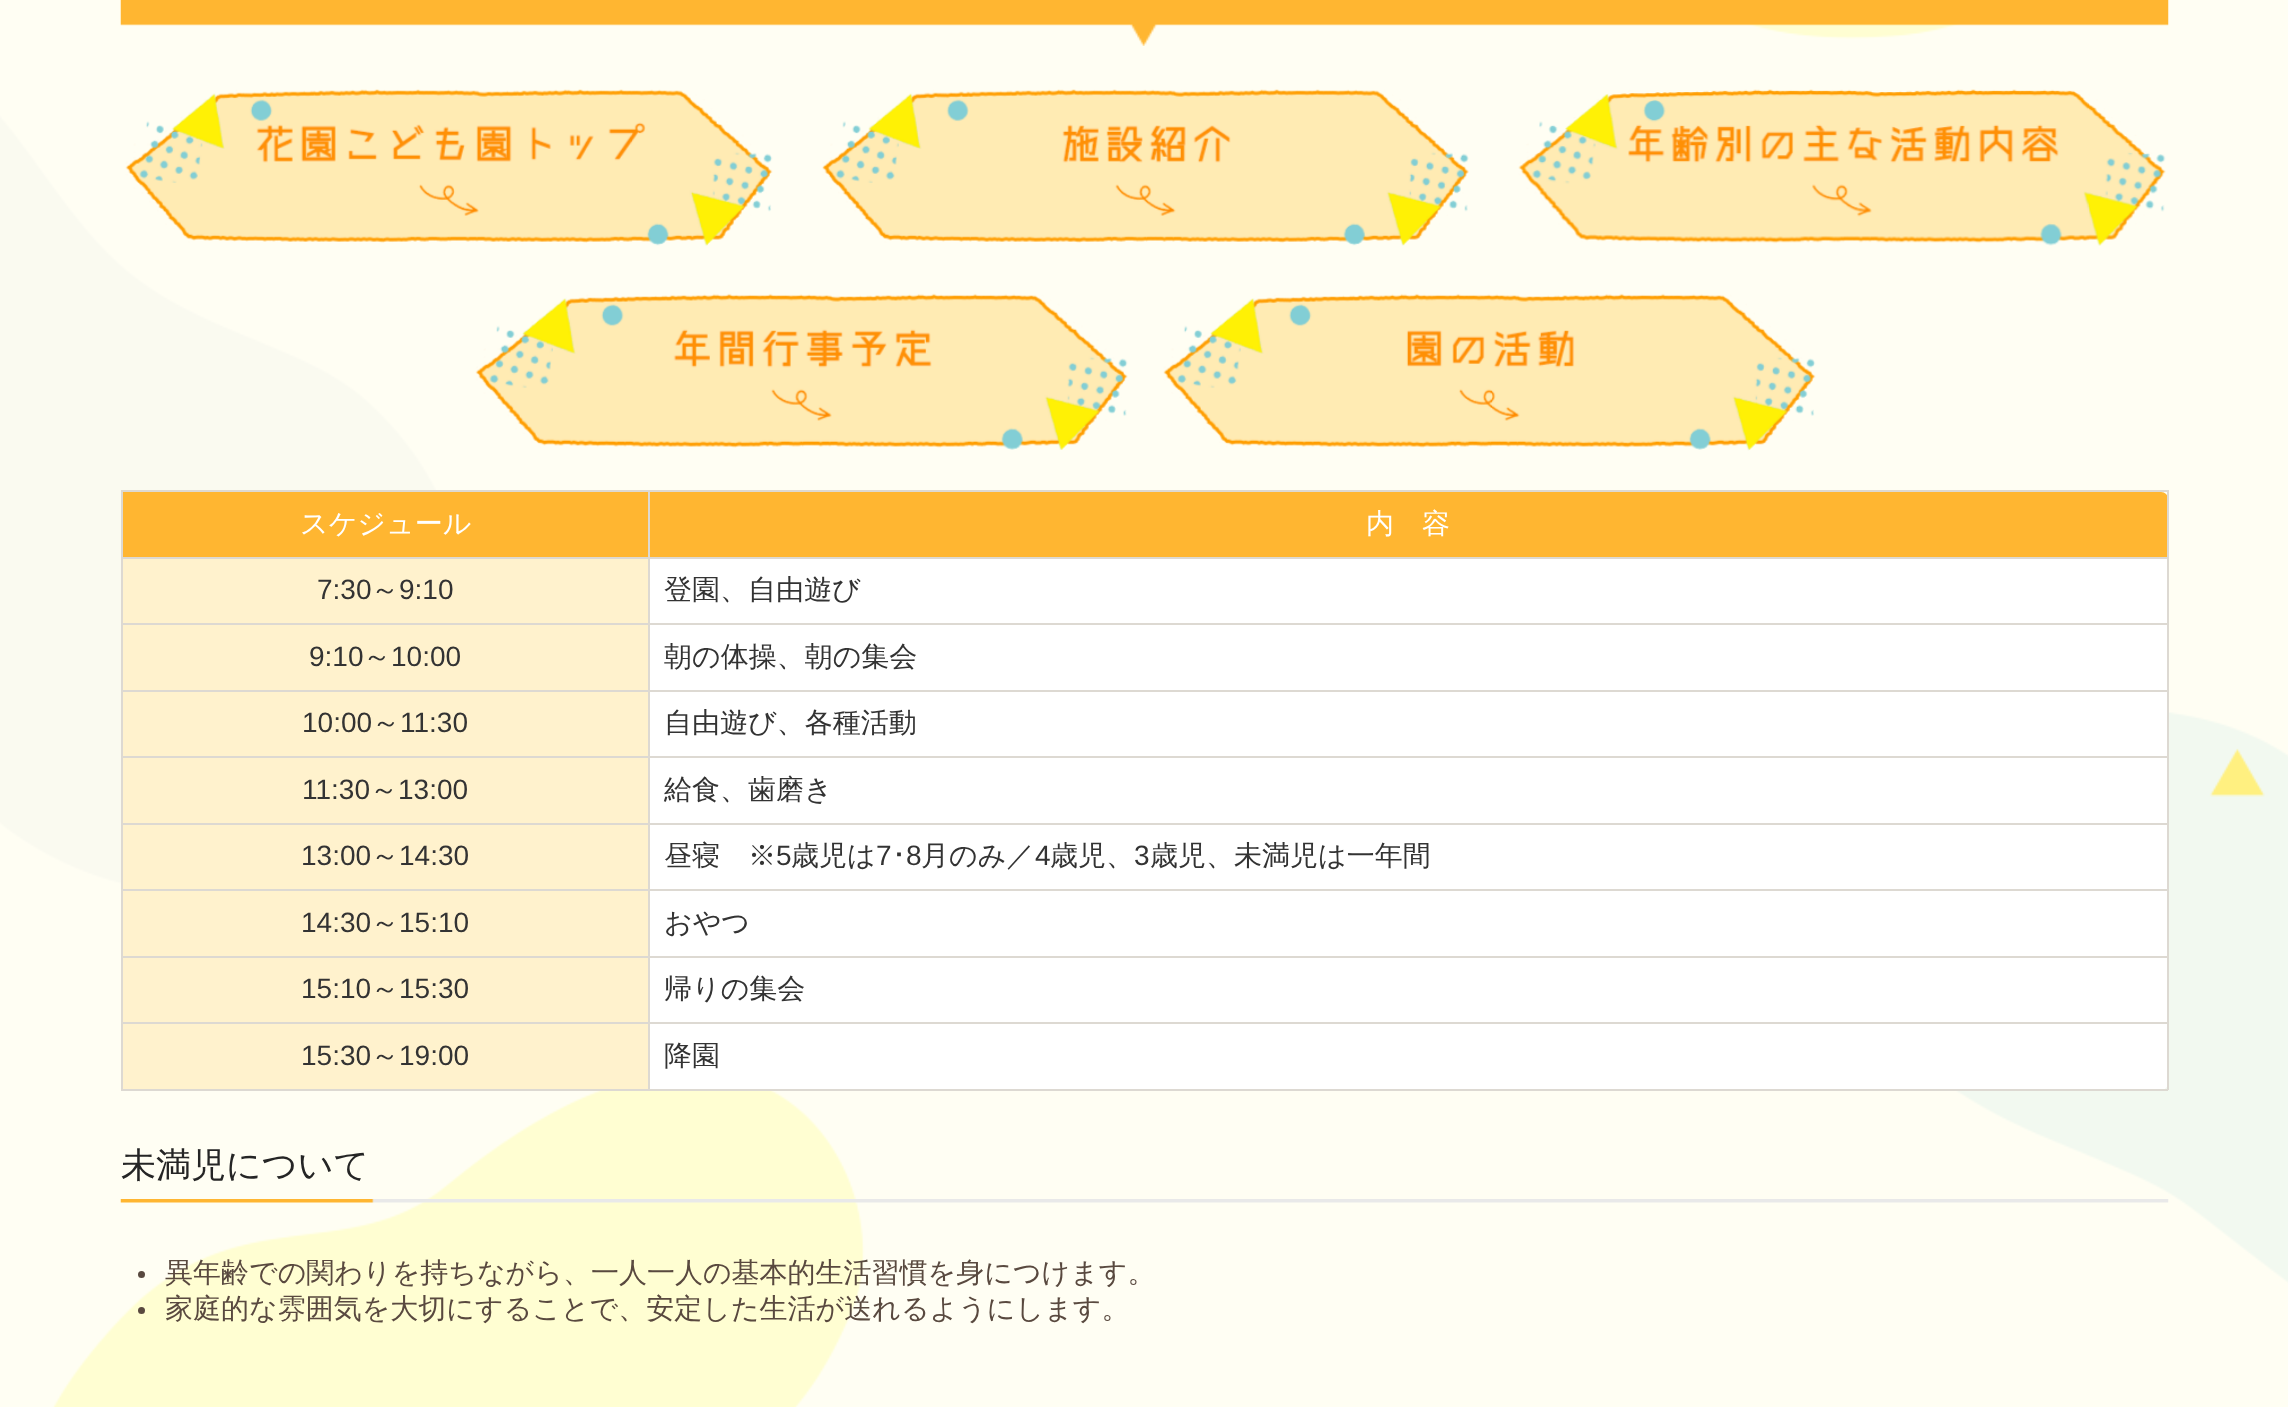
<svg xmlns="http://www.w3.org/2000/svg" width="2288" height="1407">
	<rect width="100%" height="100%" fill="#FFFFFF" />
	<image x="0" y="0" width="2288" height="1407" href="assets/img1.png" />
	<image x="120" y="0" width="2049" height="46" href="assets/img2.png" />
	<image x="125" y="89" width="648" height="157" href="assets/img3.png" />
	<image x="822" y="89" width="647" height="157" href="assets/img4.png" />
	<image x="1518" y="89" width="648" height="157" href="assets/img5.png" />
	<image x="475" y="293" width="653" height="157" href="assets/img6.png" />
	<image x="1163" y="293" width="653" height="158" href="assets/img7.png" />
	<rect x="123" y="492" width="525" height="65" fill="#FFB631" />
	<rect x="648" y="490" width="1520" height="2" fill="#DDD9D2" />
	<path d="M649 492H2161C2165 492 2168 495 2168 499V558H649Z" fill="#FFB631" />
	<rect x="648" y="557" width="1520" height="2" fill="#DDD9D2" />
	<rect x="648" y="623" width="1520" height="2" fill="#DDD9D2" />
	<rect x="648" y="690" width="1520" height="2" fill="#DDD9D2" />
	<rect x="648" y="756" width="1520" height="2" fill="#DDD9D2" />
	<rect x="648" y="823" width="1520" height="2" fill="#DDD9D2" />
	<rect x="648" y="889" width="1520" height="2" fill="#DDD9D2" />
	<rect x="648" y="956" width="1520" height="2" fill="#DDD9D2" />
	<rect x="648" y="1022" width="1520" height="2" fill="#DDD9D2" />
	<path d="M649 1024H2168V1083C2168 1087 2165 1090 2161 1090H649Z" fill="#FFFFFF" />
	<rect x="2167" y="1022" width="2" height="68" fill="#DDD9D2" />
	<rect x="648" y="1089" width="1520" height="2" fill="#DDD9D2" />
	<rect x="648" y="1022" width="2" height="68" fill="#DDD9D2" />
	<rect x="121" y="1022" width="528" height="2" fill="#DDD9D2" />
	<rect x="648" y="956" width="2" height="68" fill="#DDD9D2" />
	<rect x="121" y="956" width="528" height="2" fill="#DDD9D2" />
	<rect x="648" y="889" width="2" height="68" fill="#DDD9D2" />
	<rect x="121" y="889" width="528" height="2" fill="#DDD9D2" />
	<rect x="648" y="823" width="2" height="68" fill="#DDD9D2" />
	<rect x="121" y="823" width="528" height="2" fill="#DDD9D2" />
	<rect x="648" y="756" width="2" height="68" fill="#DDD9D2" />
	<rect x="121" y="756" width="528" height="2" fill="#DDD9D2" />
	<rect x="648" y="690" width="2" height="68" fill="#DDD9D2" />
	<rect x="121" y="690" width="528" height="2" fill="#DDD9D2" />
	<rect x="648" y="623" width="2" height="68" fill="#DDD9D2" />
	<rect x="121" y="623" width="528" height="2" fill="#DDD9D2" />
	<rect x="648" y="557" width="2" height="68" fill="#DDD9D2" />
	<rect x="121" y="557" width="528" height="2" fill="#DDD9D2" />
	<rect x="648" y="490" width="2" height="68" fill="#DDD9D2" />
	<rect x="121" y="490" width="528" height="2" fill="#DDD9D2" />
	<rect x="121" y="1089" width="528" height="2" fill="#DDD9D2" />
	<rect x="121" y="1022" width="2" height="68" fill="#DDD9D2" />
	<rect x="121" y="956" width="2" height="68" fill="#DDD9D2" />
	<rect x="121" y="889" width="2" height="68" fill="#DDD9D2" />
	<rect x="121" y="823" width="2" height="68" fill="#DDD9D2" />
	<rect x="121" y="756" width="2" height="68" fill="#DDD9D2" />
	<rect x="121" y="690" width="2" height="68" fill="#DDD9D2" />
	<rect x="121" y="623" width="2" height="68" fill="#DDD9D2" />
	<rect x="121" y="557" width="2" height="68" fill="#DDD9D2" />
	<rect x="121" y="490" width="2" height="68" fill="#DDD9D2" />
	<text x="300" y="533" font-family="WenQuanYi Zen Hei" font-size="28" font-weight="500" fill="#FFFFFF">スケジュール</text>
	<rect x="2167" y="956" width="2" height="68" fill="#DDD9D2" />
	<rect x="2167" y="889" width="2" height="68" fill="#DDD9D2" />
	<rect x="2167" y="823" width="2" height="68" fill="#DDD9D2" />
	<rect x="2167" y="756" width="2" height="68" fill="#DDD9D2" />
	<rect x="2167" y="690" width="2" height="68" fill="#DDD9D2" />
	<rect x="2167" y="623" width="2" height="68" fill="#DDD9D2" />
	<rect x="2167" y="557" width="2" height="68" fill="#DDD9D2" />
	<rect x="2167" y="490" width="2" height="68" fill="#DDD9D2" />
	<text x="1366" y="533" font-family="WenQuanYi Zen Hei" font-size="28" font-weight="500" fill="#FFFFFF">内　容</text>
	<rect x="123" y="559" width="525" height="64" fill="#FFF2CD" />
	<text x="317" y="599" font-family="Liberation Sans" font-size="28" fill="#333333">7:30</text>
	<text x="371" y="599" font-family="WenQuanYi Zen Hei" font-size="28" font-weight="500" fill="#333333">～</text>
	<text x="399" y="599" font-family="Liberation Sans" font-size="28" fill="#333333">9:10</text>
	<rect x="650" y="559" width="1517" height="64" fill="#FFFFFF" />
	<text x="664" y="599" font-family="WenQuanYi Zen Hei" font-size="28" font-weight="500" fill="#333333">登園、自由遊び</text>
	<rect x="123" y="625" width="525" height="65" fill="#FFF2CD" />
	<text x="309" y="666" font-family="Liberation Sans" font-size="28" fill="#333333">9:10</text>
	<text x="363" y="666" font-family="WenQuanYi Zen Hei" font-size="28" font-weight="500" fill="#333333">～</text>
	<text x="391" y="666" font-family="Liberation Sans" font-size="28" fill="#333333">10:00</text>
	<rect x="650" y="625" width="1517" height="65" fill="#FFFFFF" />
	<text x="664" y="666" font-family="WenQuanYi Zen Hei" font-size="28" font-weight="500" fill="#333333">朝の体操、朝の集会</text>
	<rect x="123" y="692" width="525" height="64" fill="#FFF2CD" />
	<text x="302" y="732" font-family="Liberation Sans" font-size="28" fill="#333333">10:00</text>
	<text x="372" y="732" font-family="WenQuanYi Zen Hei" font-size="28" font-weight="500" fill="#333333">～</text>
	<text x="400" y="732" font-family="Liberation Sans" font-size="28" fill="#333333">11:30</text>
	<rect x="650" y="692" width="1517" height="64" fill="#FFFFFF" />
	<text x="664" y="732" font-family="WenQuanYi Zen Hei" font-size="28" font-weight="500" fill="#333333">自由遊び、各種活動</text>
	<rect x="123" y="758" width="525" height="65" fill="#FFF2CD" />
	<text x="302" y="799" font-family="Liberation Sans" font-size="28" fill="#333333">11:30</text>
	<text x="370" y="799" font-family="WenQuanYi Zen Hei" font-size="28" font-weight="500" fill="#333333">～</text>
	<text x="398" y="799" font-family="Liberation Sans" font-size="28" fill="#333333">13:00</text>
	<rect x="650" y="758" width="1517" height="65" fill="#FFFFFF" />
	<text x="664" y="799" font-family="WenQuanYi Zen Hei" font-size="28" font-weight="500" fill="#333333">給食、歯磨き</text>
	<rect x="123" y="825" width="525" height="64" fill="#FFF2CD" />
	<text x="301" y="865" font-family="Liberation Sans" font-size="28" fill="#333333">13:00</text>
	<text x="371" y="865" font-family="WenQuanYi Zen Hei" font-size="28" font-weight="500" fill="#333333">～</text>
	<text x="399" y="865" font-family="Liberation Sans" font-size="28" fill="#333333">14:30</text>
	<rect x="650" y="825" width="1517" height="64" fill="#FFFFFF" />
	<text x="664" y="865" font-family="WenQuanYi Zen Hei" font-size="28" font-weight="500" fill="#333333">昼寝　※</text>
	<text x="776" y="865" font-family="Liberation Sans" font-size="28" fill="#333333">5</text>
	<text x="791" y="865" font-family="WenQuanYi Zen Hei" font-size="28" font-weight="500" fill="#333333">歳児は</text>
	<text x="876" y="865" font-family="Liberation Sans" font-size="28" fill="#333333">7</text>
	<text x="892" y="865" font-family="IPAPGothic" font-size="28" fill="#333333">･</text>
	<text x="906" y="865" font-family="Liberation Sans" font-size="28" fill="#333333">8</text>
	<text x="921" y="865" font-family="WenQuanYi Zen Hei" font-size="28" font-weight="500" fill="#333333">月のみ／</text>
	<text x="1035" y="865" font-family="Liberation Sans" font-size="28" fill="#333333">4</text>
	<text x="1050" y="865" font-family="WenQuanYi Zen Hei" font-size="28" font-weight="500" fill="#333333">歳児、</text>
	<text x="1134" y="865" font-family="Liberation Sans" font-size="28" fill="#333333">3</text>
	<text x="1150" y="865" font-family="WenQuanYi Zen Hei" font-size="28" font-weight="500" fill="#333333">歳児、未満児は一年間</text>
	<rect x="123" y="891" width="525" height="65" fill="#FFF2CD" />
	<text x="301" y="932" font-family="Liberation Sans" font-size="28" fill="#333333">14:30</text>
	<text x="371" y="932" font-family="WenQuanYi Zen Hei" font-size="28" font-weight="500" fill="#333333">～</text>
	<text x="399" y="932" font-family="Liberation Sans" font-size="28" fill="#333333">15:10</text>
	<rect x="650" y="891" width="1517" height="65" fill="#FFFFFF" />
	<text x="664" y="932" font-family="WenQuanYi Zen Hei" font-size="28" font-weight="500" fill="#333333">おやつ</text>
	<rect x="123" y="958" width="525" height="64" fill="#FFF2CD" />
	<text x="301" y="998" font-family="Liberation Sans" font-size="28" fill="#333333">15:10</text>
	<text x="371" y="998" font-family="WenQuanYi Zen Hei" font-size="28" font-weight="500" fill="#333333">～</text>
	<text x="399" y="998" font-family="Liberation Sans" font-size="28" fill="#333333">15:30</text>
	<rect x="650" y="958" width="1517" height="64" fill="#FFFFFF" />
	<text x="664" y="998" font-family="WenQuanYi Zen Hei" font-size="28" font-weight="500" fill="#333333">帰りの集会</text>
	<rect x="123" y="1024" width="525" height="65" fill="#FFF2CD" />
	<text x="301" y="1065" font-family="Liberation Sans" font-size="28" fill="#333333">15:30</text>
	<text x="371" y="1065" font-family="WenQuanYi Zen Hei" font-size="28" font-weight="500" fill="#333333">～</text>
	<text x="399" y="1065" font-family="Liberation Sans" font-size="28" fill="#333333">19:00</text>
	<text x="664" y="1065" font-family="WenQuanYi Zen Hei" font-size="28" font-weight="500" fill="#333333">降園</text>
	<image x="120" y="1199" width="2049" height="4" href="assets/img8.png" />
	<text x="121" y="1177" font-family="WenQuanYi Zen Hei" font-size="35" font-weight="500" fill="#252525">未満児について</text>
	<circle cx="141.5" cy="1274.5" r="3.5" fill="#59493F" />
	<text x="165" y="1282" font-family="WenQuanYi Zen Hei" font-size="28" font-weight="500" fill="#59493F">異年齢での関わりを持ちながら、一人一人の基本的生活習慣を身につけます。</text>
	<circle cx="141.5" cy="1310.5" r="3.5" fill="#59493F" />
	<text x="165" y="1318" font-family="WenQuanYi Zen Hei" font-size="28" font-weight="500" fill="#59493F">家庭的な雰囲気を大切にすることで、安定した生活が送れるようにします。</text>
</svg>
